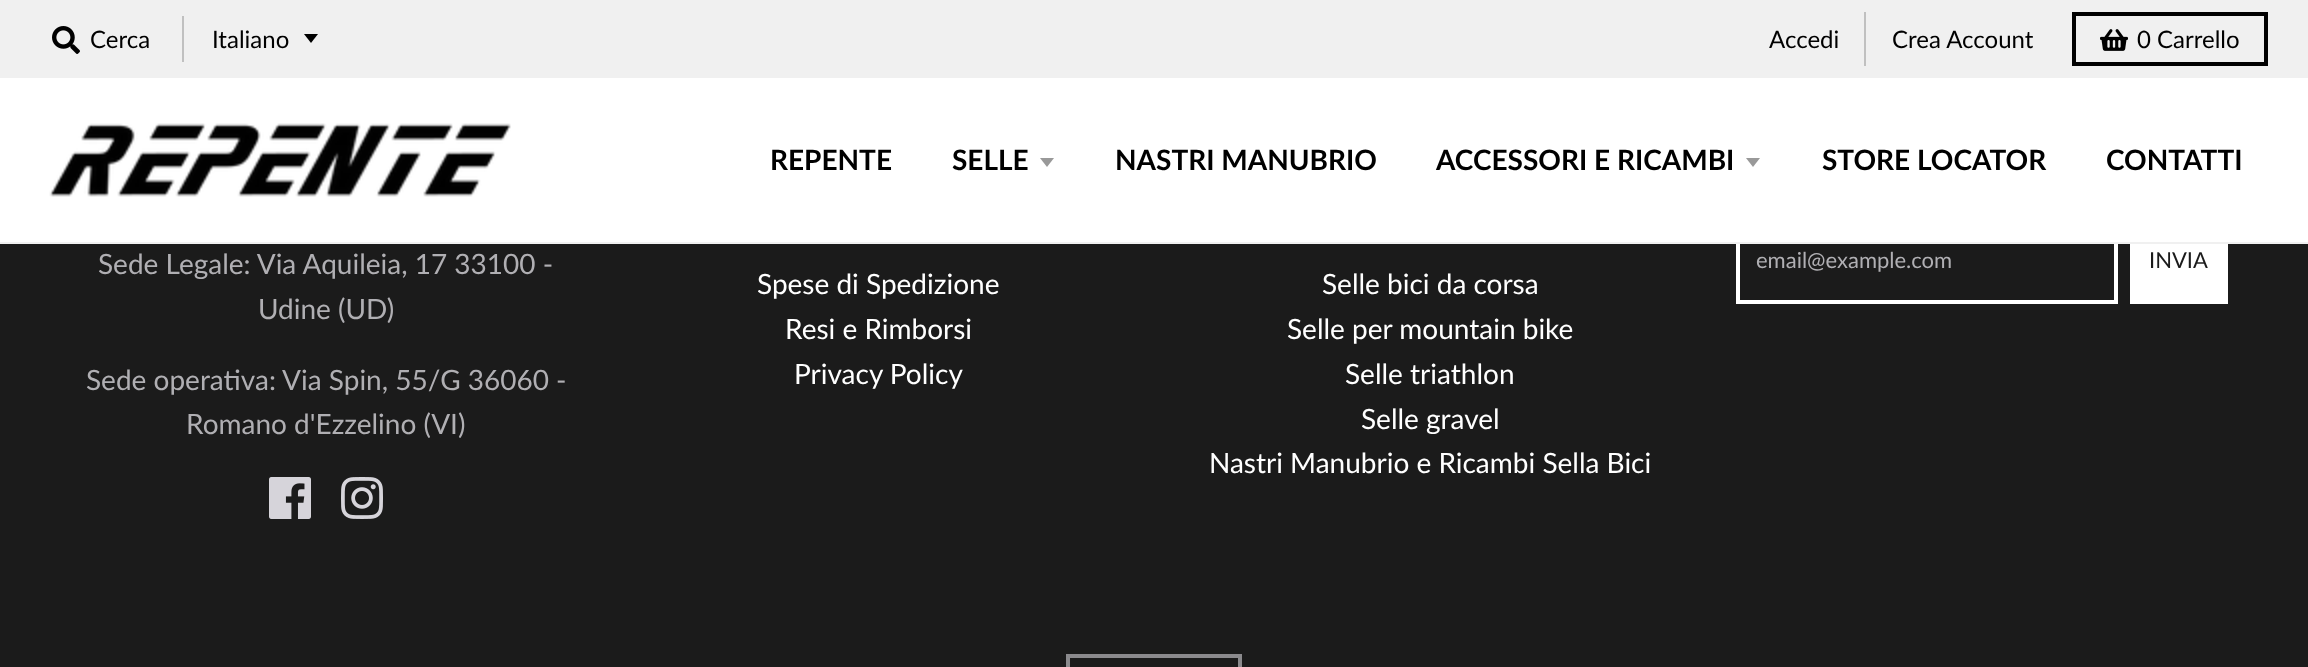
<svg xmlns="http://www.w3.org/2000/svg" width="2308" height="667">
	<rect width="100%" height="100%" fill="#1B1B1B" />
	<rect x="0" y="0" width="2308" height="78" fill="#F0F0F0" />
	<image x="52" y="26" width="28" height="28" href="assets/img1.png" />
	<text x="90" y="48" font-family="Lato" font-size="24" fill="#000000">Cerca</text>
	<rect x="182" y="16" width="2" height="46" fill="#C0C0C0" />
	<path d="M304 34L311 43L318 34Z" fill="#000000" />
	<text x="212" y="48" font-family="Lato" font-size="24" fill="#000000">Italiano</text>
	<rect x="1864" y="12" width="2" height="54" fill="#C0C0C0" />
	<g font-family="Lato" font-size="24" fill="#000000">
		<text x="1769" y="48">Accedi</text>
		<text x="1892" y="48">Crea Account</text>
	</g>
	<rect x="2074" y="14" width="192" height="50" fill="none" stroke="#000000" stroke-width="4" />
	<image x="2100" y="29" width="28" height="22" href="assets/img2.png" />
	<text x="2137" y="48" font-family="Lato" font-size="24" fill="#000000">0 Carrello</text>
	<rect x="1738" y="218" width="378" height="84" fill="none" stroke="#FFFFFF" stroke-width="4" />
	<rect x="0" y="78" width="2308" height="164" fill="#FFFFFF" />
	<rect x="0" y="242" width="2308" height="2" fill="#F0F0F0" />
	<image x="49" y="123" width="462" height="74" href="assets/img3.png" />
	<g font-family="Lato" font-size="28" font-weight="700" fill="#000000">
		<text x="770" y="170">REPENTE</text>
		<text x="952" y="170">SELLE</text>
	</g>
	<path d="M1040 158L1047 167L1054 158Z" fill="#999999" />
	<g font-family="Lato" font-size="28" font-weight="700" fill="#000000">
		<text x="1115" y="170">NASTRI MANUBRIO</text>
		<text x="1436" y="170">ACCESSORI E RICAMBI</text>
	</g>
	<path d="M1746 158L1753 167L1760 158Z" fill="#999999" />
	<g font-family="Lato" font-size="28" font-weight="700" fill="#000000">
		<text x="1822" y="170">STORE LOCATOR</text>
		<text x="2106" y="170">CONTATTI</text>
	</g>
	<g font-family="Lato" font-size="28" fill="#B0AFB3">
		<text x="98" y="274">Sede Legale: Via Aquileia, 17 33100 -</text>
		<text x="258" y="319">Udine (UD)</text>
		<text x="86" y="390">Sede operativa: Via Spin, 55/G 36060 -</text>
		<text x="186" y="434">Romano d'Ezzelino (VI)</text>
	</g>
	<image x="269" y="477" width="42" height="42" href="assets/img4.png" />
	<image x="341" y="477" width="42" height="42" href="assets/img5.png" />
	<g font-family="Lato" font-size="28" fill="#FFFFFF">
		<text x="757" y="294">Spese di Spedizione</text>
		<text x="785" y="339">Resi e Rimborsi</text>
		<text x="794" y="384">Privacy Policy</text>
		<text x="1322" y="294">Selle bici da corsa</text>
		<text x="1287" y="339">Selle per mountain bike</text>
		<text x="1345" y="384">Selle triathlon</text>
		<text x="1361" y="429">Selle gravel</text>
		<text x="1209" y="473">Nastri Manubrio e Ricambi Sella Bici</text>
	</g>
	<text x="1756" y="268" font-family="Lato" font-size="22" fill="#B0AFB3">email@example.com</text>
	<rect x="2130" y="244" width="98" height="60" fill="#FFFFFF" />
	<text x="2149" y="268" font-family="Lato" font-size="22" fill="#1B1B1B">INVIA</text>
	<rect x="1068" y="656" width="172" height="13" fill="none" stroke="#8B8A8D" stroke-width="4" />
</svg>
